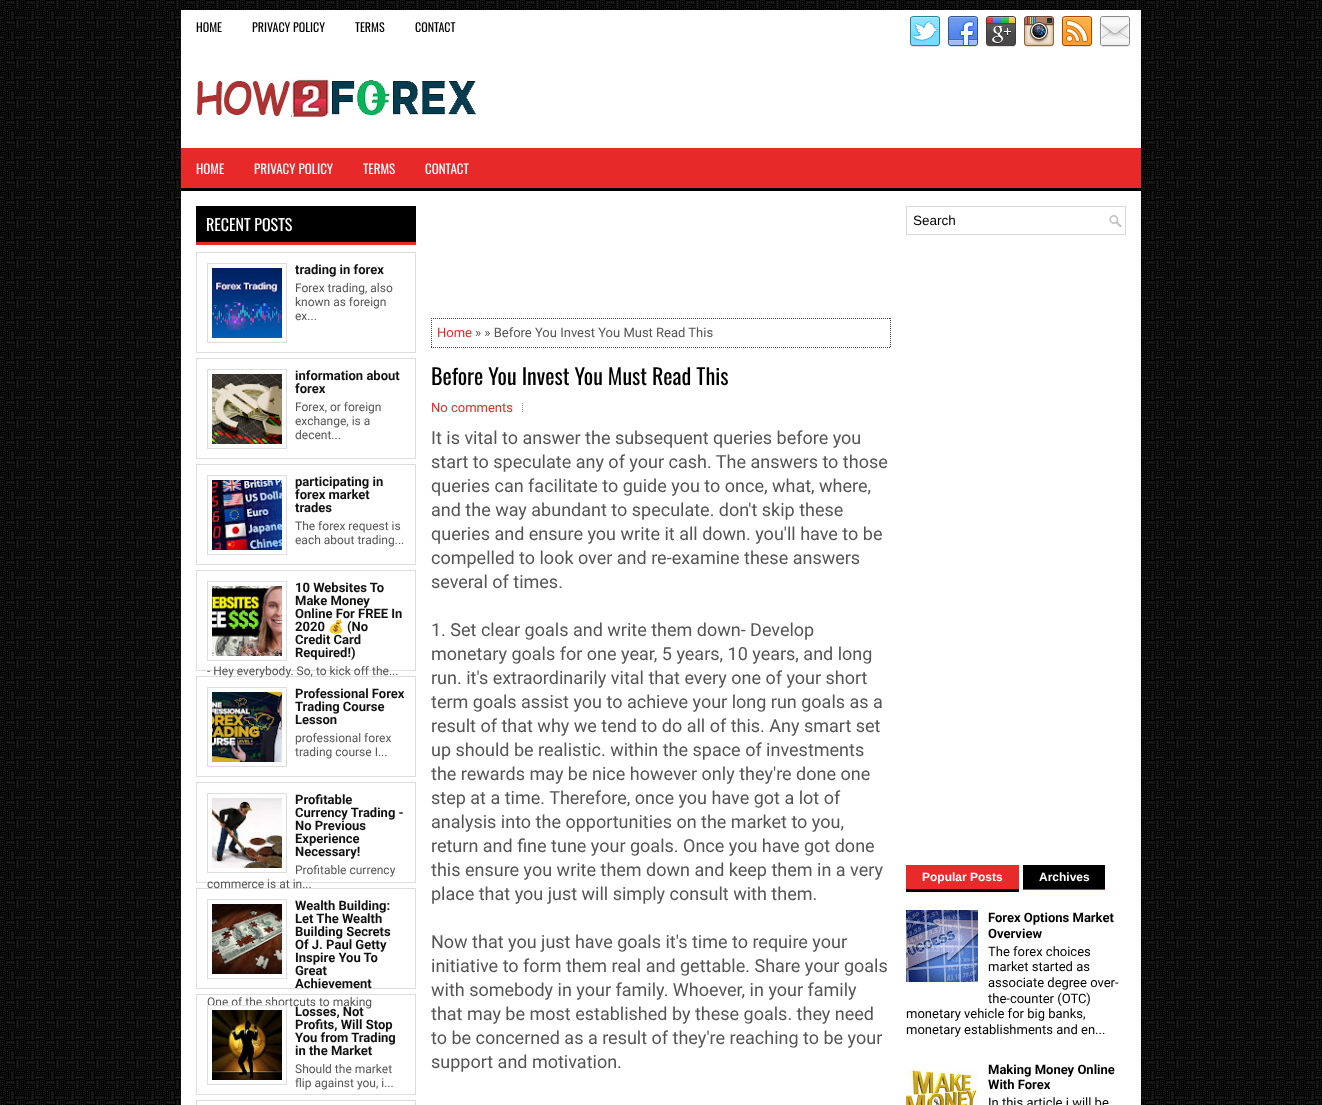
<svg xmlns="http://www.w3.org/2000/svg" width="1322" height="1105">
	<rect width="100%" height="100%" fill="#FFFFFF" />
	<image x="0" y="0" width="1322" height="1105" href="assets/img1.png" />
	<rect x="181" y="10" width="960" height="138" fill="#FFFFFF" />
	<g font-family="Oswald" font-size="12" fill="#000000">
		<text x="196" y="32">HOME</text>
		<text x="252" y="32">PRIVACY POLICY</text>
		<text x="355" y="32">TERMS</text>
		<text x="415" y="32">CONTACT</text>
	</g>
	<image x="910" y="16" width="30" height="31" href="assets/img2.png" />
	<image x="948" y="16" width="30" height="31" href="assets/img3.png" />
	<image x="986" y="16" width="30" height="31" href="assets/img4.png" />
	<image x="1024" y="16" width="30" height="31" href="assets/img5.png" />
	<image x="1062" y="16" width="30" height="31" href="assets/img6.png" />
	<image x="1100" y="16" width="30" height="31" href="assets/img7.png" />
	<image x="197" y="79" width="279" height="38" href="assets/img8.png" />
	<rect x="181" y="148" width="960" height="40" fill="#E72929" />
	<rect x="181" y="188" width="960" height="3" fill="#000000" />
	<g font-family="Oswald" font-size="13" fill="#FFFFFF">
		<text x="196" y="174">HOME</text>
		<text x="254" y="174">PRIVACY POLICY</text>
		<text x="363" y="174">TERMS</text>
		<text x="425" y="174">CONTACT</text>
	</g>
	<rect x="181" y="191" width="960" height="914" fill="#FFFFFF" />
	<rect x="196" y="242" width="220" height="3" fill="#E72929" />
	<rect x="196" y="206" width="220" height="36" fill="#000000" />
	<text x="206" y="231" font-family="Oswald" font-size="16" fill="#FFFFFF">RECENT POSTS</text>
	<rect x="196.5" y="252.5" width="219" height="100" fill="none" stroke="#DDDDDD" />
	<rect x="207.5" y="263.5" width="79" height="79" fill="none" stroke="#DDDDDD" />
	<image x="212" y="268" width="70" height="70" href="assets/img9.png" />
	<text x="295" y="274" font-family="Roboto" font-size="13" font-weight="700" fill="#111111">trading in forex</text>
	<g font-family="Roboto" font-size="12" fill="#555555">
		<text x="295" y="292">Forex trading, also</text>
		<text x="295" y="306">known as foreign</text>
		<text x="295" y="320">ex...</text>
	</g>
	<rect x="196.5" y="358.5" width="219" height="100" fill="none" stroke="#DDDDDD" />
	<rect x="207.5" y="369.5" width="79" height="79" fill="none" stroke="#DDDDDD" />
	<image x="212" y="374" width="70" height="70" href="assets/img10.png" />
	<g font-family="Roboto" font-size="13" font-weight="700" fill="#111111">
		<text x="295" y="380">information about</text>
		<text x="295" y="393">forex</text>
	</g>
	<g font-family="Roboto" font-size="12" fill="#555555">
		<text x="295" y="411">Forex, or foreign</text>
		<text x="295" y="425">exchange, is a</text>
		<text x="295" y="439">decent...</text>
	</g>
	<rect x="196.5" y="464.5" width="219" height="100" fill="none" stroke="#DDDDDD" />
	<rect x="207.5" y="475.5" width="79" height="79" fill="none" stroke="#DDDDDD" />
	<image x="212" y="480" width="70" height="70" href="assets/img11.png" />
	<g font-family="Roboto" font-size="13" font-weight="700" fill="#111111">
		<text x="295" y="486">participating in</text>
		<text x="295" y="499">forex market</text>
		<text x="295" y="512">trades</text>
	</g>
	<g font-family="Roboto" font-size="12" fill="#555555">
		<text x="295" y="530">The forex request is</text>
		<text x="295" y="544">each about trading...</text>
	</g>
	<rect x="196.5" y="570.5" width="219" height="100" fill="none" stroke="#DDDDDD" />
	<rect x="207.5" y="581.5" width="79" height="79" fill="none" stroke="#DDDDDD" />
	<image x="212" y="586" width="70" height="70" href="assets/img12.png" />
	<g font-family="Roboto" font-size="13" font-weight="700" fill="#111111">
		<text x="295" y="592">10 Websites To</text>
		<text x="295" y="605">Make Money</text>
		<text x="295" y="618">Online For FREE In</text>
		<text x="295" y="631">2020</text>
	</g>
	<text x="328" y="631" font-family="Noto Color Emoji" font-size="13" font-weight="700" fill="#111111">💰</text>
	<g font-family="Roboto" font-size="13" font-weight="700" fill="#111111">
		<text x="347" y="631">(No</text>
		<text x="295" y="644">Credit Card</text>
		<text x="295" y="657">Required!)</text>
	</g>
	<rect x="196.5" y="676.5" width="219" height="100" fill="none" stroke="#DDDDDD" />
	<text x="207" y="675" font-family="Roboto" font-size="12" fill="#555555">- Hey everybody. So, to kick off the...</text>
	<rect x="207.5" y="687.5" width="79" height="79" fill="none" stroke="#DDDDDD" />
	<image x="212" y="692" width="70" height="70" href="assets/img13.png" />
	<g font-family="Roboto" font-size="13" font-weight="700" fill="#111111">
		<text x="295" y="698">Professional Forex</text>
		<text x="295" y="711">Trading Course</text>
		<text x="295" y="724">Lesson</text>
	</g>
	<g font-family="Roboto" font-size="12" fill="#555555">
		<text x="295" y="742">professional forex</text>
		<text x="295" y="756">trading course I...</text>
	</g>
	<rect x="196.5" y="782.5" width="219" height="100" fill="none" stroke="#DDDDDD" />
	<rect x="207.5" y="793.5" width="79" height="79" fill="none" stroke="#DDDDDD" />
	<image x="212" y="798" width="70" height="70" href="assets/img14.png" />
	<g font-family="Roboto" font-size="13" font-weight="700" fill="#111111">
		<text x="295" y="804">Profitable</text>
		<text x="295" y="817">Currency Trading -</text>
		<text x="295" y="830">No Previous</text>
		<text x="295" y="843">Experience</text>
		<text x="295" y="856">Necessary!</text>
	</g>
	<text x="295" y="874" font-family="Roboto" font-size="12" fill="#555555">Profitable currency</text>
	<rect x="196.5" y="888.5" width="219" height="100" fill="none" stroke="#DDDDDD" />
	<text x="207" y="888" font-family="Roboto" font-size="12" fill="#555555">commerce is at in...</text>
	<rect x="207.5" y="899.5" width="79" height="79" fill="none" stroke="#DDDDDD" />
	<image x="212" y="904" width="70" height="70" href="assets/img15.png" />
	<g font-family="Roboto" font-size="13" font-weight="700" fill="#111111">
		<text x="295" y="910">Wealth Building:</text>
		<text x="295" y="923">Let The Wealth</text>
		<text x="295" y="936">Building Secrets</text>
		<text x="295" y="949">Of J. Paul Getty</text>
		<text x="295" y="962">Inspire You To</text>
		<text x="295" y="975">Great</text>
		<text x="295" y="988">Achievement</text>
	</g>
	<rect x="196.5" y="994.5" width="219" height="100" fill="none" stroke="#DDDDDD" />
	<text x="207" y="1006" font-family="Roboto" font-size="12" fill="#555555">One of the shortcuts to making</text>
	<rect x="210" y="1006" width="72" height="1" fill="#FFFFFF" />
	<rect x="207.5" y="1005.5" width="79" height="79" fill="none" stroke="#DDDDDD" />
	<image x="212" y="1010" width="70" height="70" href="assets/img16.png" />
	<g font-family="Roboto" font-size="13" font-weight="700" fill="#111111">
		<text x="295" y="1016">Losses, Not</text>
		<text x="295" y="1029">Profits, Will Stop</text>
		<text x="295" y="1042">You from Trading</text>
		<text x="295" y="1055">in the Market</text>
	</g>
	<g font-family="Roboto" font-size="12" fill="#555555">
		<text x="295" y="1073">Should the market</text>
		<text x="295" y="1087">flip against you, i...</text>
	</g>
	<rect x="196.5" y="1100.5" width="219" height="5" fill="none" stroke="#DDDDDD" />
	<path d="M431 318.5H891" fill="none" stroke="#444444" stroke-dasharray="1 1" />
	<path d="M890.5 318V348" fill="none" stroke="#444444" stroke-dasharray="1 1" />
	<path d="M431 347.5H891" fill="none" stroke="#444444" stroke-dasharray="1 1" />
	<path d="M431.5 318V348" fill="none" stroke="#444444" stroke-dasharray="1 1" />
	<text x="437" y="337" font-family="Roboto" font-size="13" fill="#E82A2A">Home</text>
	<text x="475" y="337" font-family="Roboto" font-size="13" fill="#555555">» » Before You Invest You Must Read This</text>
	<text x="431" y="385" font-family="Oswald" font-size="22" fill="#000000">Before You Invest You Must Read This</text>
	<text x="431" y="412" font-family="Roboto" font-size="13" fill="#E82A2A">No comments</text>
	<image x="522" y="403" width="1" height="9" href="assets/img17.png" />
	<g font-family="Roboto" font-size="18" fill="#555555">
		<text x="431" y="444">It is vital to answer the subsequent queries before you</text>
		<text x="431" y="468">start to speculate any of your cash. The answers to those</text>
		<text x="431" y="492">queries can facilitate to guide you to once, what, where,</text>
		<text x="431" y="516">and the way abundant to speculate. don't skip these</text>
		<text x="431" y="540">queries and ensure you write it all down. you'll have to be</text>
		<text x="431" y="564">compelled to look over and re-examine these answers</text>
		<text x="431" y="588">several of times.</text>
		<text x="431" y="636">1. Set clear goals and write them down- Develop</text>
		<text x="431" y="660">monetary goals for one year, 5 years, 10 years, and long</text>
		<text x="431" y="684">run. it's extraordinarily vital that every one of your short</text>
		<text x="431" y="708">term goals assist you to achieve your long run goals as a</text>
		<text x="431" y="732">result of that why we tend to do all of this. Any smart set</text>
		<text x="431" y="756">up should be realistic. within the space of investments</text>
		<text x="431" y="780">the rewards may be nice however only they're done one</text>
		<text x="431" y="804">step at a time. Therefore, once you have got a lot of</text>
		<text x="431" y="828">analysis into the opportunities on the market to you,</text>
		<text x="431" y="852">return and fine tune your goals. Once you have got done</text>
		<text x="431" y="876">this ensure you write them down and keep them in a very</text>
		<text x="431" y="900">place that you just will simply consult with them.</text>
		<text x="431" y="948">Now that you just have goals it's time to require your</text>
		<text x="431" y="972">initiative to form them real and gettable. Share your goals</text>
		<text x="431" y="996">with somebody in your family. Whoever, in your family</text>
		<text x="431" y="1020">that may be most established by these goals. they need</text>
		<text x="431" y="1044">to be concerned as a result of they're reaching to be your</text>
		<text x="431" y="1068">support and motivation.</text>
	</g>
	<image x="1109" y="215" width="13" height="13" href="assets/img18.png" />
	<rect x="906.5" y="206.5" width="219" height="28" fill="none" stroke="#D8D8D8" />
	<text x="913" y="225" font-family="Liberation Sans" font-size="13.5" fill="#000000">Search</text>
	<rect x="906" y="865" width="113" height="24" fill="#E82A2A" />
	<rect x="906" y="889" width="113" height="3" fill="#000000" />
	<text x="922" y="881" font-family="Liberation Sans" font-size="12" font-weight="700" fill="#FFFFFF">Popular Posts</text>
	<rect x="1023" y="865" width="82" height="24" fill="#000000" />
	<rect x="1023" y="889" width="82" height="1" fill="#E72929" />
	<text x="1039" y="881" font-family="Liberation Sans" font-size="12" font-weight="700" fill="#FFFFFF">Archives</text>
	<image x="906" y="910" width="72" height="72" href="assets/img19.png" />
	<g font-family="Roboto" font-size="13" font-weight="700" fill="#000000">
		<text x="988" y="922">Forex Options Market</text>
		<text x="988" y="938">Overview</text>
	</g>
	<g font-family="Roboto" font-size="13" fill="#000000">
		<text x="988" y="956">The forex choices</text>
		<text x="988" y="971">market started as</text>
		<text x="988" y="987">associate degree over-</text>
		<text x="988" y="1003">the-counter (OTC)</text>
		<text x="906" y="1018">monetary vehicle for big banks,</text>
		<text x="906" y="1034">monetary establishments and en...</text>
	</g>
	<image x="906" y="1070" width="72" height="35" href="assets/img20.png" />
	<g font-family="Roboto" font-size="13" font-weight="700" fill="#000000">
		<text x="988" y="1074">Making Money Online</text>
		<text x="988" y="1089">With Forex</text>
	</g>
	<text x="988" y="1107" font-family="Roboto" font-size="13" fill="#000000">In this article i will be</text>
</svg>
